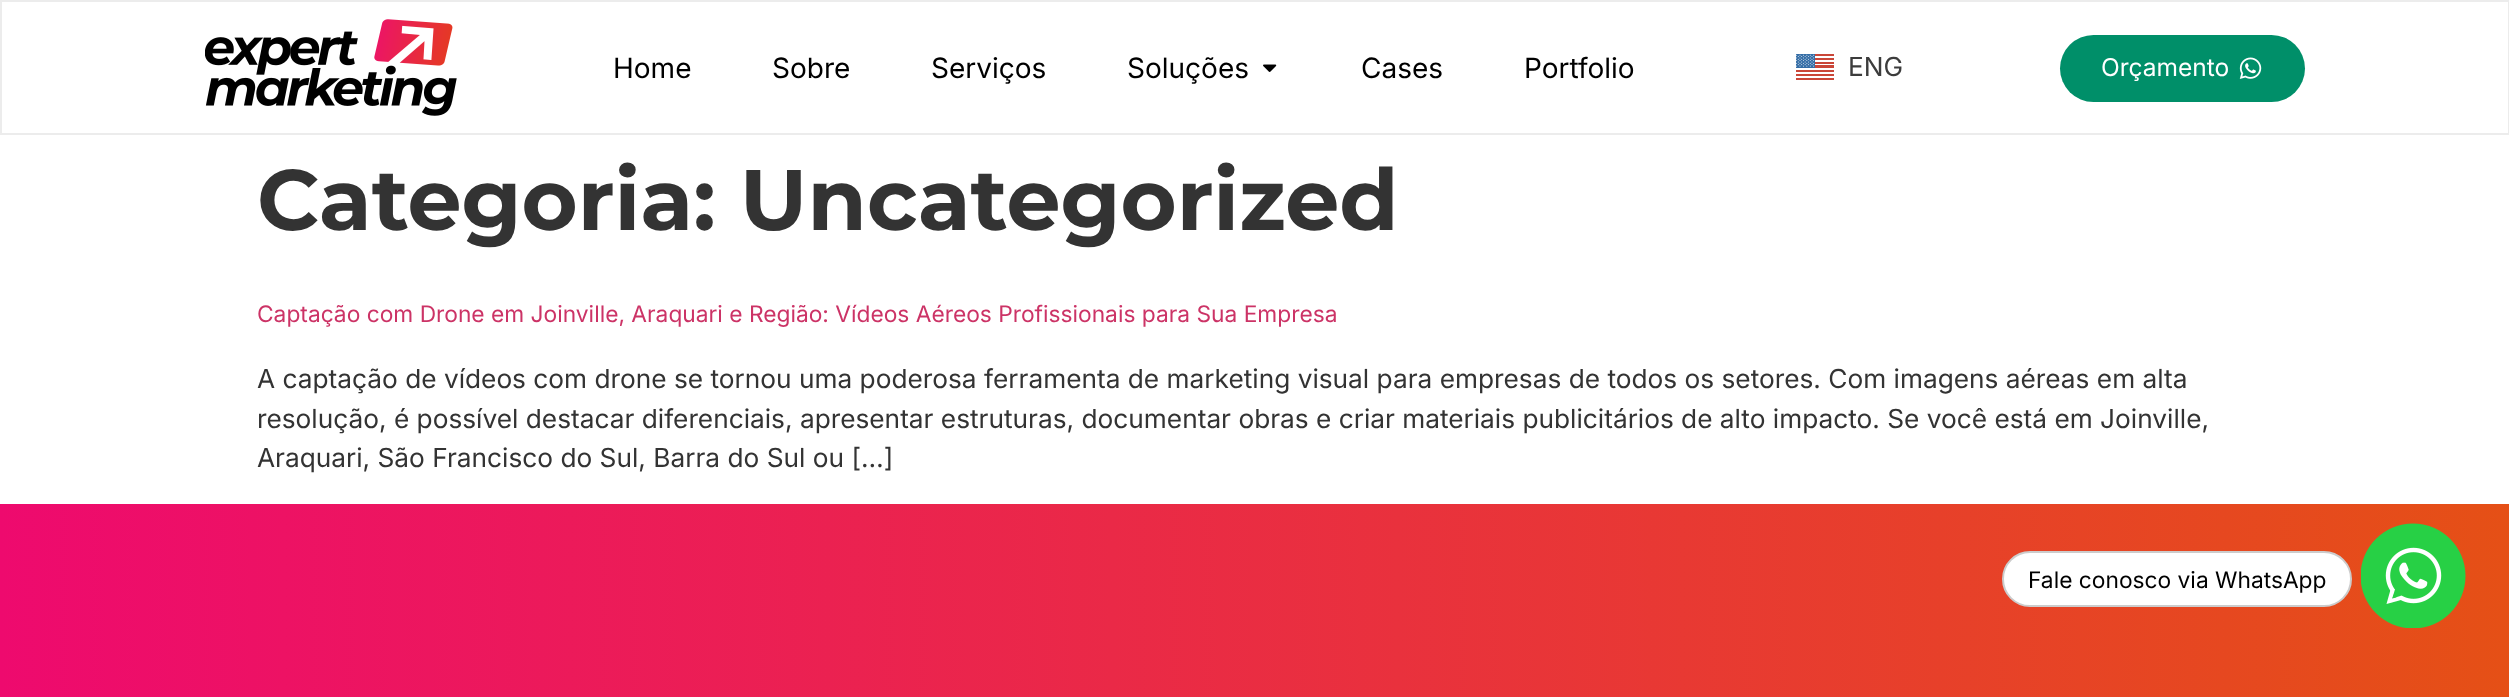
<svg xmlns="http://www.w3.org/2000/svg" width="2509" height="697">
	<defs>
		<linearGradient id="g1" gradientUnits="userSpaceOnUse" x1="0" y1="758" x2="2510" y2="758"><stop offset="0" stop-color="#EE0A6E" /><stop offset="1" stop-color="#E55016" /></linearGradient>
	</defs>
	<rect width="100%" height="100%" fill="#FFFFFF" />
	<path d="M1 1H2509V133C2509 133.5 2508.5 134 2508 134H1Z" fill="none" stroke="#ECECEC" stroke-width="2" />
	<image x="205" y="19" width="252" height="97" href="assets/img1.png" />
	<g font-family="Inter" font-size="28" fill="#000000">
		<text x="613" y="78">Home</text>
		<text x="772" y="78">Sobre</text>
		<text x="931" y="78">Serviços</text>
		<text x="1127" y="78">Soluções</text>
	</g>
	<image x="1263" y="64" width="14" height="8" href="assets/img2.png" />
	<g font-family="Inter" font-size="28" fill="#000000">
		<text x="1361" y="78">Cases</text>
		<text x="1524" y="78">Portfolio</text>
	</g>
	<image x="1796" y="54" width="38" height="26" href="assets/img3.png" />
	<text x="1848" y="76" font-family="Inter" font-size="26.25" fill="#3C3C3C">ENG</text>
	<rect x="2060" y="35" width="245" height="67" rx="33.5" fill="#008F69" />
	<text x="2101" y="76" font-family="Inter" font-size="24.5" fill="#FFFFFF">Orçamento</text>
	<image x="2239" y="57" width="23" height="22" href="assets/img4.png" />
	<text x="257" y="230" font-family="Montserrat" font-size="85.75" font-weight="700" fill="#333333">Categoria: Uncategorized</text>
	<text x="257" y="322" font-family="Inter" font-size="22.75" fill="#CC3366">Captação com Drone em Joinville, Araquari e Região: Vídeos Aéreos Profissionais para Sua Empresa</text>
	<g font-family="Inter" font-size="26.25" fill="#333333">
		<text x="257" y="388">A captação de vídeos com drone se tornou uma poderosa ferramenta de marketing visual para empresas de todos os setores. Com imagens aéreas em alta</text>
		<text x="257" y="428">resolução, é possível destacar diferenciais, apresentar estruturas, documentar obras e criar materiais publicitários de alto impacto. Se você está em Joinville,</text>
		<text x="257" y="467">Araquari, São Francisco do Sul, Barra do Sul ou […]</text>
	</g>
	<rect x="0" y="504" width="2509" height="193" fill="url(#g1)" />
	<rect x="2003" y="552" width="348" height="54" rx="27" fill="#FFFFFF" stroke="#CCCCCC" stroke-width="2" />
	<text x="2028" y="588" font-family="Inter" font-size="22.75" fill="#000000">Fale conosco via WhatsApp</text>
	<image x="2361" y="523" width="105" height="105" href="assets/img5.png" />
</svg>
